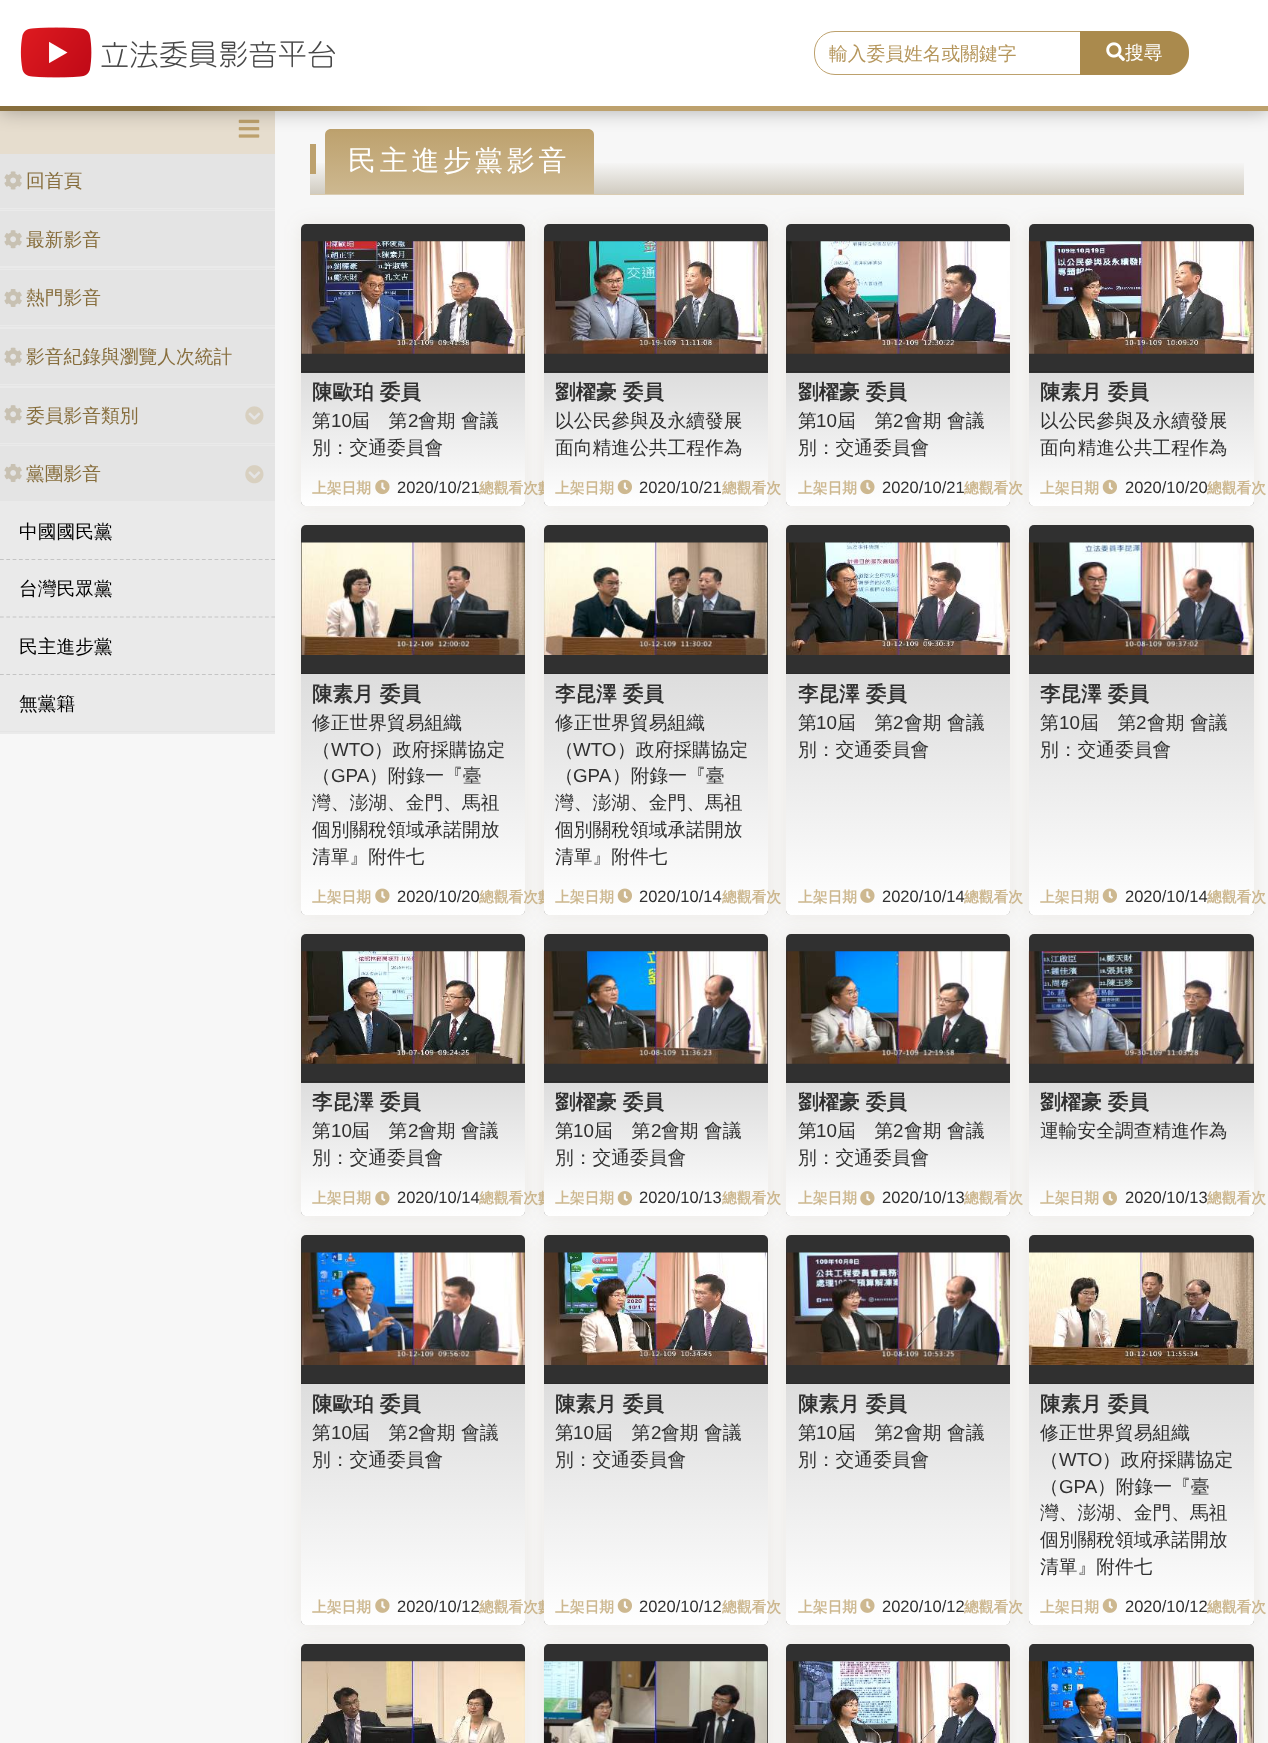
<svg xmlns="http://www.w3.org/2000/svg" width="1268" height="1743">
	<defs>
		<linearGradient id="g1" gradientUnits="userSpaceOnUse" x1="777" y1="129" x2="777" y2="194"><stop offset="0.5" stop-color="#F7F7F7" /><stop offset="1" stop-color="#D0CBC0" /></linearGradient>
		<linearGradient id="g2" gradientUnits="userSpaceOnUse" x1="459" y1="129" x2="459" y2="194"><stop offset="0" stop-color="#BDA16D" /><stop offset="1" stop-color="#CDB890" /></linearGradient>
		<linearGradient id="g3" gradientUnits="userSpaceOnUse" x1="0" y1="56" x2="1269" y2="56"><stop offset="0.12" stop-color="#876E3D" /><stop offset="0.34" stop-color="#BDA16D" /></linearGradient>
		<linearGradient id="g4" gradientUnits="userSpaceOnUse" x1="413" y1="373" x2="413" y2="506"><stop offset="0" stop-color="#DDDDDD" /><stop offset="1" stop-color="#FFFFFF" /></linearGradient>
		<linearGradient id="g5" gradientUnits="userSpaceOnUse" x1="656" y1="373" x2="656" y2="506"><stop offset="0" stop-color="#DDDDDD" /><stop offset="1" stop-color="#FFFFFF" /></linearGradient>
		<linearGradient id="g6" gradientUnits="userSpaceOnUse" x1="898" y1="373" x2="898" y2="506"><stop offset="0" stop-color="#DDDDDD" /><stop offset="1" stop-color="#FFFFFF" /></linearGradient>
		<linearGradient id="g7" gradientUnits="userSpaceOnUse" x1="1141" y1="373" x2="1141" y2="506"><stop offset="0" stop-color="#DDDDDD" /><stop offset="1" stop-color="#FFFFFF" /></linearGradient>
		<linearGradient id="g8" gradientUnits="userSpaceOnUse" x1="413" y1="674" x2="413" y2="915"><stop offset="0" stop-color="#DDDDDD" /><stop offset="1" stop-color="#FFFFFF" /></linearGradient>
		<linearGradient id="g9" gradientUnits="userSpaceOnUse" x1="656" y1="674" x2="656" y2="915"><stop offset="0" stop-color="#DDDDDD" /><stop offset="1" stop-color="#FFFFFF" /></linearGradient>
		<linearGradient id="g10" gradientUnits="userSpaceOnUse" x1="898" y1="674" x2="898" y2="915"><stop offset="0" stop-color="#DDDDDD" /><stop offset="1" stop-color="#FFFFFF" /></linearGradient>
		<linearGradient id="g11" gradientUnits="userSpaceOnUse" x1="1141" y1="674" x2="1141" y2="915"><stop offset="0" stop-color="#DDDDDD" /><stop offset="1" stop-color="#FFFFFF" /></linearGradient>
		<linearGradient id="g12" gradientUnits="userSpaceOnUse" x1="413" y1="1083" x2="413" y2="1216"><stop offset="0" stop-color="#DDDDDD" /><stop offset="1" stop-color="#FFFFFF" /></linearGradient>
		<linearGradient id="g13" gradientUnits="userSpaceOnUse" x1="656" y1="1083" x2="656" y2="1216"><stop offset="0" stop-color="#DDDDDD" /><stop offset="1" stop-color="#FFFFFF" /></linearGradient>
		<linearGradient id="g14" gradientUnits="userSpaceOnUse" x1="898" y1="1083" x2="898" y2="1216"><stop offset="0" stop-color="#DDDDDD" /><stop offset="1" stop-color="#FFFFFF" /></linearGradient>
		<linearGradient id="g15" gradientUnits="userSpaceOnUse" x1="1141" y1="1083" x2="1141" y2="1216"><stop offset="0" stop-color="#DDDDDD" /><stop offset="1" stop-color="#FFFFFF" /></linearGradient>
		<linearGradient id="g16" gradientUnits="userSpaceOnUse" x1="413" y1="1384" x2="413" y2="1625"><stop offset="0" stop-color="#DDDDDD" /><stop offset="1" stop-color="#FFFFFF" /></linearGradient>
		<linearGradient id="g17" gradientUnits="userSpaceOnUse" x1="656" y1="1384" x2="656" y2="1625"><stop offset="0" stop-color="#DDDDDD" /><stop offset="1" stop-color="#FFFFFF" /></linearGradient>
		<linearGradient id="g18" gradientUnits="userSpaceOnUse" x1="898" y1="1384" x2="898" y2="1625"><stop offset="0" stop-color="#DDDDDD" /><stop offset="1" stop-color="#FFFFFF" /></linearGradient>
		<linearGradient id="g19" gradientUnits="userSpaceOnUse" x1="1141" y1="1384" x2="1141" y2="1625"><stop offset="0" stop-color="#DDDDDD" /><stop offset="1" stop-color="#FFFFFF" /></linearGradient>
	</defs>
	<rect width="100%" height="100%" fill="#F7F7F7" />
	<rect x="0" y="111" width="275" height="43" fill="#E6DDCE" />
	<image x="238" y="119" width="22" height="19" href="assets/img3.png" />
	<rect x="310" y="163" width="934" height="31" fill="url(#g1)" />
	<path d="M331 129H588C591.5 129 594 131.5 594 135V194H325V135C325 131.5 327.5 129 331 129Z" fill="url(#g2)" />
	<rect x="0" y="0" width="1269" height="111" fill="#000000" fill-opacity="0.3" filter="blur(9.5px)" />
	<rect x="0" y="106" width="1268" height="5" fill="url(#g3)" />
	<rect x="0" y="0" width="1268" height="106" fill="#FFFFFF" />
	<image x="20" y="27" width="315" height="51" href="assets/img1.png" />
	<path d="M835 31.5H1080.5V74.5H835C823.5 74.5 814.5 65.5 814.5 54V52C814.5 40.5 823.5 31.5 835 31.5Z" fill="none" stroke="#BDA16D" />
	<text x="829" y="60" font-family="WenQuanYi Zen Hei" font-size="18.75" font-weight="500" fill="#B5965C">輸入委員姓名或關鍵字</text>
	<path d="M1080 31H1168C1179.5 31 1189 40.5 1189 52V54C1189 65.5 1179.5 75 1168 75H1080Z" fill="#AA8A4D" />
	<image x="1106" y="42" width="19" height="19" href="assets/img2.png" />
	<text x="1125" y="59" font-family="WenQuanYi Zen Hei" font-size="18.75" font-weight="500" fill="#FFFFFF">搜尋</text>
	<rect x="0" y="208" width="275" height="526" fill="#EAEAEA" />
	<rect x="0" y="209" width="275" height="1" fill="#E5E5E5" />
	<rect x="0" y="154" width="275" height="54" fill="#E4E4E4" />
	<image x="4" y="171" width="18" height="19" href="assets/img4.png" />
	<text x="26" y="187" font-family="WenQuanYi Zen Hei" font-size="18.75" font-weight="500" fill="#876E3D">回首頁</text>
	<rect x="0" y="268" width="275" height="1" fill="#E5E5E5" />
	<rect x="0" y="211" width="275" height="55" fill="#E4E4E4" />
	<image x="4" y="230" width="18" height="19" href="assets/img5.png" />
	<text x="26" y="246" font-family="WenQuanYi Zen Hei" font-size="18.75" font-weight="500" fill="#876E3D">最新影音</text>
	<rect x="0" y="326" width="275" height="1" fill="#E5E5E5" />
	<rect x="0" y="270" width="275" height="55" fill="#E4E4E4" />
	<image x="4" y="289" width="18" height="18" href="assets/img6.png" />
	<text x="26" y="304" font-family="WenQuanYi Zen Hei" font-size="18.75" font-weight="500" fill="#876E3D">熱門影音</text>
	<rect x="0" y="385" width="275" height="1" fill="#E5E5E5" />
	<rect x="0" y="329" width="275" height="55" fill="#E4E4E4" />
	<image x="4" y="347" width="18" height="19" href="assets/img7.png" />
	<text x="26" y="363" font-family="WenQuanYi Zen Hei" font-size="18.75" font-weight="500" fill="#876E3D">影音紀錄與瀏覽人次統計</text>
	<rect x="0" y="444" width="275" height="1" fill="#E5E5E5" />
	<rect x="0" y="388" width="275" height="55" fill="#E4E4E4" />
	<image x="4" y="405" width="18" height="19" href="assets/img5.png" />
	<text x="26" y="422" font-family="WenQuanYi Zen Hei" font-size="18.75" font-weight="500" fill="#876E3D">委員影音類別</text>
	<image x="245" y="406" width="19" height="19" href="assets/img8.png" />
	<rect x="0" y="731" width="275" height="1" fill="#E5E5E5" />
	<rect x="0" y="446" width="275" height="55" fill="#E4E4E4" />
	<image x="4" y="464" width="18" height="18" href="assets/img6.png" />
	<text x="26" y="480" font-family="WenQuanYi Zen Hei" font-size="18.75" font-weight="500" fill="#876E3D">黨團影音</text>
	<image x="245" y="465" width="19" height="19" href="assets/img9.png" />
	<path d="M0 559.5H275" fill="none" stroke="#C4C4C4" stroke-width="1.2" stroke-dasharray="3.75 2.56" />
	<text x="19" y="538" font-family="WenQuanYi Zen Hei" font-size="18.75" font-weight="500" fill="#000000">中國國民黨</text>
	<path d="M0 617H275" fill="none" stroke="#C4C4C4" stroke-width="1.2" stroke-dasharray="3.75 2.56" />
	<text x="19" y="595" font-family="WenQuanYi Zen Hei" font-size="18.75" font-weight="500" fill="#000000">台灣民眾黨</text>
	<path d="M0 674.5H275" fill="none" stroke="#C4C4C4" stroke-width="1.2" stroke-dasharray="3.75 2.56" />
	<g font-family="WenQuanYi Zen Hei" font-size="18.75" font-weight="500" fill="#000000">
		<text x="19" y="653">民主進步黨</text>
		<text x="19" y="710">無黨籍</text>
	</g>
	<rect x="310" y="194" width="934" height="1" fill="#DACCB2" />
	<rect x="310" y="144" width="6" height="30" fill="#BDA16D" />
	<text x="348" y="170" font-family="WenQuanYi Zen Hei" font-size="28" font-weight="500" letter-spacing="3.75" fill="#FFFFFF">民主進步黨影音</text>
	<rect x="301" y="224" width="224" height="282" rx="5" fill="#876E3D" fill-opacity="0.1" filter="blur(9px)" />
	<rect x="301" y="224" width="224" height="282" rx="5" fill="#303030" />
	<image x="301" y="241" width="224" height="113" href="assets/img10.png" />
	<rect x="301" y="371" width="224" height="1" fill="#2A2A2A" />
	<path d="M301 373H525V501C525 504 523 506 520 506H306C303 506 301 504 301 501Z" fill="url(#g4)" />
	<text x="312" y="399" font-family="WenQuanYi Zen Hei" font-size="20.5" font-weight="700" fill="#303030">陳歐珀 委員</text>
	<text x="312" y="427" font-family="WenQuanYi Zen Hei" font-size="18.75" font-weight="500" fill="#303030">第</text>
	<text x="331" y="427" font-family="Liberation Sans" font-size="18.75" fill="#303030">10</text>
	<text x="351" y="427" font-family="WenQuanYi Zen Hei" font-size="18.75" font-weight="500" fill="#303030">屆　第</text>
	<text x="408" y="427" font-family="Liberation Sans" font-size="18.75" fill="#303030">2</text>
	<g font-family="WenQuanYi Zen Hei" font-size="18.75" font-weight="500" fill="#303030">
		<text x="418" y="427">會期 會議</text>
		<text x="312" y="454">別：交通委員會</text>
	</g>
	<image x="375" y="479" width="15" height="16" href="assets/img11.png" />
	<text x="312" y="493" font-family="WenQuanYi Zen Hei" font-size="14.75" font-weight="700" fill="#CDB890">上架日期</text>
	<text x="397" y="493" font-family="Liberation Sans" font-size="16.5" fill="#303030">2020/10/21</text>
	<text x="479" y="493" font-family="WenQuanYi Zen Hei" font-size="14.75" font-weight="700" fill="#CDB890">總觀看次數</text>
	<rect x="544" y="224" width="224" height="282" rx="5" fill="#876E3D" fill-opacity="0.1" filter="blur(9px)" />
	<rect x="544" y="224" width="224" height="282" rx="5" fill="#303030" />
	<image x="543" y="241" width="225" height="113" href="assets/img12.png" />
	<rect x="544" y="371" width="224" height="1" fill="#2A2A2A" />
	<path d="M544 373H768V501C768 504 766 506 763 506H549C546 506 544 504 544 501Z" fill="url(#g5)" />
	<text x="555" y="399" font-family="WenQuanYi Zen Hei" font-size="20.5" font-weight="700" fill="#303030">劉櫂豪 委員</text>
	<g font-family="WenQuanYi Zen Hei" font-size="18.75" font-weight="500" fill="#303030">
		<text x="555" y="427">以公民參與及永續發展</text>
		<text x="555" y="454">面向精進公共工程作為</text>
	</g>
	<image x="617" y="479" width="15" height="16" href="assets/img13.png" />
	<text x="555" y="493" font-family="WenQuanYi Zen Hei" font-size="14.75" font-weight="700" fill="#CDB890">上架日期</text>
	<text x="639" y="493" font-family="Liberation Sans" font-size="16.5" fill="#303030">2020/10/21</text>
	<text x="722" y="493" font-family="WenQuanYi Zen Hei" font-size="14.75" font-weight="700" fill="#CDB890">總觀看次</text>
	<rect x="786" y="224" width="224" height="282" rx="5" fill="#876E3D" fill-opacity="0.1" filter="blur(9px)" />
	<rect x="786" y="224" width="224" height="282" rx="5" fill="#303030" />
	<image x="786" y="241" width="224" height="113" href="assets/img14.png" />
	<rect x="786" y="371" width="224" height="1" fill="#2A2A2A" />
	<path d="M786 373H1010V501C1010 504 1008 506 1005 506H791C788 506 786 504 786 501Z" fill="url(#g6)" />
	<text x="798" y="399" font-family="WenQuanYi Zen Hei" font-size="20.5" font-weight="700" fill="#303030">劉櫂豪 委員</text>
	<text x="798" y="427" font-family="WenQuanYi Zen Hei" font-size="18.75" font-weight="500" fill="#303030">第</text>
	<text x="816" y="427" font-family="Liberation Sans" font-size="18.75" fill="#303030">10</text>
	<text x="837" y="427" font-family="WenQuanYi Zen Hei" font-size="18.75" font-weight="500" fill="#303030">屆　第</text>
	<text x="893" y="427" font-family="Liberation Sans" font-size="18.75" fill="#303030">2</text>
	<g font-family="WenQuanYi Zen Hei" font-size="18.75" font-weight="500" fill="#303030">
		<text x="904" y="427">會期 會議</text>
		<text x="798" y="454">別：交通委員會</text>
	</g>
	<image x="860" y="479" width="15" height="16" href="assets/img11.png" />
	<text x="798" y="493" font-family="WenQuanYi Zen Hei" font-size="14.75" font-weight="700" fill="#CDB890">上架日期</text>
	<text x="882" y="493" font-family="Liberation Sans" font-size="16.5" fill="#303030">2020/10/21</text>
	<text x="964" y="493" font-family="WenQuanYi Zen Hei" font-size="14.75" font-weight="700" fill="#CDB890">總觀看次</text>
	<rect x="1029" y="224" width="225" height="282" rx="5" fill="#876E3D" fill-opacity="0.1" filter="blur(9px)" />
	<rect x="1029" y="224" width="225" height="282" rx="5" fill="#303030" />
	<image x="1028" y="241" width="226" height="113" href="assets/img15.png" />
	<rect x="1029" y="371" width="225" height="1" fill="#2A2A2A" />
	<path d="M1029 373H1254V501C1254 504 1252 506 1249 506H1034C1031 506 1029 504 1029 501Z" fill="url(#g7)" />
	<text x="1040" y="399" font-family="WenQuanYi Zen Hei" font-size="20.5" font-weight="700" fill="#303030">陳素月 委員</text>
	<g font-family="WenQuanYi Zen Hei" font-size="18.75" font-weight="500" fill="#303030">
		<text x="1040" y="427">以公民參與及永續發展</text>
		<text x="1040" y="454">面向精進公共工程作為</text>
	</g>
	<image x="1102" y="479" width="15" height="16" href="assets/img13.png" />
	<text x="1040" y="493" font-family="WenQuanYi Zen Hei" font-size="14.75" font-weight="700" fill="#CDB890">上架日期</text>
	<text x="1125" y="493" font-family="Liberation Sans" font-size="16.5" fill="#303030">2020/10/20</text>
	<text x="1207" y="493" font-family="WenQuanYi Zen Hei" font-size="14.75" font-weight="700" fill="#CDB890">總觀看次</text>
	<rect x="301" y="525" width="224" height="390" rx="5" fill="#876E3D" fill-opacity="0.1" filter="blur(9px)" />
	<rect x="301" y="525" width="224" height="390" rx="5" fill="#303030" />
	<image x="301" y="542" width="224" height="113" href="assets/img16.png" />
	<rect x="301" y="673" width="224" height="1" fill="#2A2A2A" />
	<path d="M301 674H525V910C525 913 523 915 520 915H306C303 915 301 913 301 910Z" fill="url(#g8)" />
	<text x="312" y="701" font-family="WenQuanYi Zen Hei" font-size="20.5" font-weight="700" fill="#303030">陳素月 委員</text>
	<g font-family="WenQuanYi Zen Hei" font-size="18.75" font-weight="500" fill="#303030">
		<text x="312" y="729">修正世界貿易組織</text>
		<text x="312" y="756">（</text>
	</g>
	<text x="331" y="756" font-family="Liberation Sans" font-size="18.75" fill="#303030">WTO</text>
	<g font-family="WenQuanYi Zen Hei" font-size="18.75" font-weight="500" fill="#303030">
		<text x="374" y="756">）政府採購協定</text>
		<text x="312" y="782">（</text>
	</g>
	<text x="331" y="782" font-family="Liberation Sans" font-size="18.75" fill="#303030">GPA</text>
	<g font-family="WenQuanYi Zen Hei" font-size="18.75" font-weight="500" fill="#303030">
		<text x="369" y="782">）附錄一『臺</text>
		<text x="312" y="809">灣、澎湖、金門、馬祖</text>
		<text x="312" y="836">個別關稅領域承諾開放</text>
		<text x="312" y="863">清單』附件七</text>
	</g>
	<image x="375" y="888" width="15" height="15" href="assets/img17.png" />
	<text x="312" y="902" font-family="WenQuanYi Zen Hei" font-size="14.75" font-weight="700" fill="#CDB890">上架日期</text>
	<text x="397" y="902" font-family="Liberation Sans" font-size="16.5" fill="#303030">2020/10/20</text>
	<text x="479" y="902" font-family="WenQuanYi Zen Hei" font-size="14.75" font-weight="700" fill="#CDB890">總觀看次數</text>
	<rect x="544" y="525" width="224" height="390" rx="5" fill="#876E3D" fill-opacity="0.1" filter="blur(9px)" />
	<rect x="544" y="525" width="224" height="390" rx="5" fill="#303030" />
	<image x="543" y="542" width="225" height="113" href="assets/img18.png" />
	<rect x="544" y="673" width="224" height="1" fill="#2A2A2A" />
	<path d="M544 674H768V910C768 913 766 915 763 915H549C546 915 544 913 544 910Z" fill="url(#g9)" />
	<text x="555" y="701" font-family="WenQuanYi Zen Hei" font-size="20.5" font-weight="700" fill="#303030">李昆澤 委員</text>
	<g font-family="WenQuanYi Zen Hei" font-size="18.75" font-weight="500" fill="#303030">
		<text x="555" y="729">修正世界貿易組織</text>
		<text x="555" y="756">（</text>
	</g>
	<text x="573" y="756" font-family="Liberation Sans" font-size="18.75" fill="#303030">WTO</text>
	<g font-family="WenQuanYi Zen Hei" font-size="18.75" font-weight="500" fill="#303030">
		<text x="617" y="756">）政府採購協定</text>
		<text x="555" y="782">（</text>
	</g>
	<text x="573" y="782" font-family="Liberation Sans" font-size="18.75" fill="#303030">GPA</text>
	<g font-family="WenQuanYi Zen Hei" font-size="18.75" font-weight="500" fill="#303030">
		<text x="612" y="782">）附錄一『臺</text>
		<text x="555" y="809">灣、澎湖、金門、馬祖</text>
		<text x="555" y="836">個別關稅領域承諾開放</text>
		<text x="555" y="863">清單』附件七</text>
	</g>
	<image x="617" y="888" width="15" height="15" href="assets/img19.png" />
	<text x="555" y="902" font-family="WenQuanYi Zen Hei" font-size="14.75" font-weight="700" fill="#CDB890">上架日期</text>
	<text x="639" y="902" font-family="Liberation Sans" font-size="16.5" fill="#303030">2020/10/14</text>
	<text x="722" y="902" font-family="WenQuanYi Zen Hei" font-size="14.75" font-weight="700" fill="#CDB890">總觀看次</text>
	<rect x="786" y="525" width="224" height="390" rx="5" fill="#876E3D" fill-opacity="0.1" filter="blur(9px)" />
	<rect x="786" y="525" width="224" height="390" rx="5" fill="#303030" />
	<image x="786" y="542" width="224" height="113" href="assets/img20.png" />
	<rect x="786" y="673" width="224" height="1" fill="#2A2A2A" />
	<path d="M786 674H1010V910C1010 913 1008 915 1005 915H791C788 915 786 913 786 910Z" fill="url(#g10)" />
	<text x="798" y="701" font-family="WenQuanYi Zen Hei" font-size="20.5" font-weight="700" fill="#303030">李昆澤 委員</text>
	<text x="798" y="729" font-family="WenQuanYi Zen Hei" font-size="18.75" font-weight="500" fill="#303030">第</text>
	<text x="816" y="729" font-family="Liberation Sans" font-size="18.75" fill="#303030">10</text>
	<text x="837" y="729" font-family="WenQuanYi Zen Hei" font-size="18.75" font-weight="500" fill="#303030">屆　第</text>
	<text x="893" y="729" font-family="Liberation Sans" font-size="18.75" fill="#303030">2</text>
	<g font-family="WenQuanYi Zen Hei" font-size="18.75" font-weight="500" fill="#303030">
		<text x="904" y="729">會期 會議</text>
		<text x="798" y="756">別：交通委員會</text>
	</g>
	<image x="860" y="888" width="15" height="15" href="assets/img17.png" />
	<text x="798" y="902" font-family="WenQuanYi Zen Hei" font-size="14.75" font-weight="700" fill="#CDB890">上架日期</text>
	<text x="882" y="902" font-family="Liberation Sans" font-size="16.5" fill="#303030">2020/10/14</text>
	<text x="964" y="902" font-family="WenQuanYi Zen Hei" font-size="14.75" font-weight="700" fill="#CDB890">總觀看次</text>
	<rect x="1029" y="525" width="225" height="390" rx="5" fill="#876E3D" fill-opacity="0.1" filter="blur(9px)" />
	<rect x="1029" y="525" width="225" height="390" rx="5" fill="#303030" />
	<image x="1028" y="542" width="226" height="113" href="assets/img21.png" />
	<rect x="1029" y="673" width="225" height="1" fill="#2A2A2A" />
	<path d="M1029 674H1254V910C1254 913 1252 915 1249 915H1034C1031 915 1029 913 1029 910Z" fill="url(#g11)" />
	<text x="1040" y="701" font-family="WenQuanYi Zen Hei" font-size="20.5" font-weight="700" fill="#303030">李昆澤 委員</text>
	<text x="1040" y="729" font-family="WenQuanYi Zen Hei" font-size="18.75" font-weight="500" fill="#303030">第</text>
	<text x="1059" y="729" font-family="Liberation Sans" font-size="18.75" fill="#303030">10</text>
	<text x="1080" y="729" font-family="WenQuanYi Zen Hei" font-size="18.75" font-weight="500" fill="#303030">屆　第</text>
	<text x="1136" y="729" font-family="Liberation Sans" font-size="18.75" fill="#303030">2</text>
	<g font-family="WenQuanYi Zen Hei" font-size="18.75" font-weight="500" fill="#303030">
		<text x="1147" y="729">會期 會議</text>
		<text x="1040" y="756">別：交通委員會</text>
	</g>
	<image x="1102" y="888" width="15" height="15" href="assets/img19.png" />
	<text x="1040" y="902" font-family="WenQuanYi Zen Hei" font-size="14.75" font-weight="700" fill="#CDB890">上架日期</text>
	<text x="1125" y="902" font-family="Liberation Sans" font-size="16.5" fill="#303030">2020/10/14</text>
	<text x="1207" y="902" font-family="WenQuanYi Zen Hei" font-size="14.75" font-weight="700" fill="#CDB890">總觀看次</text>
	<rect x="301" y="934" width="224" height="282" rx="5" fill="#876E3D" fill-opacity="0.1" filter="blur(9px)" />
	<rect x="301" y="934" width="224" height="282" rx="5" fill="#303030" />
	<image x="301" y="951" width="224" height="113" href="assets/img22.png" />
	<rect x="301" y="1081" width="224" height="1" fill="#2A2A2A" />
	<path d="M301 1083H525V1211C525 1214 523 1216 520 1216H306C303 1216 301 1214 301 1211Z" fill="url(#g12)" />
	<text x="312" y="1109" font-family="WenQuanYi Zen Hei" font-size="20.5" font-weight="700" fill="#303030">李昆澤 委員</text>
	<text x="312" y="1137" font-family="WenQuanYi Zen Hei" font-size="18.75" font-weight="500" fill="#303030">第</text>
	<text x="331" y="1137" font-family="Liberation Sans" font-size="18.75" fill="#303030">10</text>
	<text x="351" y="1137" font-family="WenQuanYi Zen Hei" font-size="18.75" font-weight="500" fill="#303030">屆　第</text>
	<text x="408" y="1137" font-family="Liberation Sans" font-size="18.75" fill="#303030">2</text>
	<g font-family="WenQuanYi Zen Hei" font-size="18.75" font-weight="500" fill="#303030">
		<text x="418" y="1137">會期 會議</text>
		<text x="312" y="1164">別：交通委員會</text>
	</g>
	<image x="375" y="1191" width="15" height="15" href="assets/img23.png" />
	<text x="312" y="1203" font-family="WenQuanYi Zen Hei" font-size="14.75" font-weight="700" fill="#CDB890">上架日期</text>
	<text x="397" y="1203" font-family="Liberation Sans" font-size="16.5" fill="#303030">2020/10/14</text>
	<text x="479" y="1203" font-family="WenQuanYi Zen Hei" font-size="14.75" font-weight="700" fill="#CDB890">總觀看次數</text>
	<rect x="544" y="934" width="224" height="282" rx="5" fill="#876E3D" fill-opacity="0.1" filter="blur(9px)" />
	<rect x="544" y="934" width="224" height="282" rx="5" fill="#303030" />
	<image x="543" y="951" width="225" height="113" href="assets/img24.png" />
	<rect x="544" y="1081" width="224" height="1" fill="#2A2A2A" />
	<path d="M544 1083H768V1211C768 1214 766 1216 763 1216H549C546 1216 544 1214 544 1211Z" fill="url(#g13)" />
	<text x="555" y="1109" font-family="WenQuanYi Zen Hei" font-size="20.5" font-weight="700" fill="#303030">劉櫂豪 委員</text>
	<text x="555" y="1137" font-family="WenQuanYi Zen Hei" font-size="18.75" font-weight="500" fill="#303030">第</text>
	<text x="573" y="1137" font-family="Liberation Sans" font-size="18.75" fill="#303030">10</text>
	<text x="594" y="1137" font-family="WenQuanYi Zen Hei" font-size="18.75" font-weight="500" fill="#303030">屆　第</text>
	<text x="651" y="1137" font-family="Liberation Sans" font-size="18.75" fill="#303030">2</text>
	<g font-family="WenQuanYi Zen Hei" font-size="18.75" font-weight="500" fill="#303030">
		<text x="661" y="1137">會期 會議</text>
		<text x="555" y="1164">別：交通委員會</text>
	</g>
	<image x="617" y="1191" width="15" height="15" href="assets/img25.png" />
	<text x="555" y="1203" font-family="WenQuanYi Zen Hei" font-size="14.75" font-weight="700" fill="#CDB890">上架日期</text>
	<text x="639" y="1203" font-family="Liberation Sans" font-size="16.5" fill="#303030">2020/10/13</text>
	<text x="722" y="1203" font-family="WenQuanYi Zen Hei" font-size="14.75" font-weight="700" fill="#CDB890">總觀看次</text>
	<rect x="786" y="934" width="224" height="282" rx="5" fill="#876E3D" fill-opacity="0.1" filter="blur(9px)" />
	<rect x="786" y="934" width="224" height="282" rx="5" fill="#303030" />
	<image x="786" y="951" width="224" height="113" href="assets/img26.png" />
	<rect x="786" y="1081" width="224" height="1" fill="#2A2A2A" />
	<path d="M786 1083H1010V1211C1010 1214 1008 1216 1005 1216H791C788 1216 786 1214 786 1211Z" fill="url(#g14)" />
	<text x="798" y="1109" font-family="WenQuanYi Zen Hei" font-size="20.5" font-weight="700" fill="#303030">劉櫂豪 委員</text>
	<text x="798" y="1137" font-family="WenQuanYi Zen Hei" font-size="18.75" font-weight="500" fill="#303030">第</text>
	<text x="816" y="1137" font-family="Liberation Sans" font-size="18.75" fill="#303030">10</text>
	<text x="837" y="1137" font-family="WenQuanYi Zen Hei" font-size="18.75" font-weight="500" fill="#303030">屆　第</text>
	<text x="893" y="1137" font-family="Liberation Sans" font-size="18.75" fill="#303030">2</text>
	<g font-family="WenQuanYi Zen Hei" font-size="18.75" font-weight="500" fill="#303030">
		<text x="904" y="1137">會期 會議</text>
		<text x="798" y="1164">別：交通委員會</text>
	</g>
	<image x="860" y="1191" width="15" height="15" href="assets/img23.png" />
	<text x="798" y="1203" font-family="WenQuanYi Zen Hei" font-size="14.75" font-weight="700" fill="#CDB890">上架日期</text>
	<text x="882" y="1203" font-family="Liberation Sans" font-size="16.5" fill="#303030">2020/10/13</text>
	<text x="964" y="1203" font-family="WenQuanYi Zen Hei" font-size="14.75" font-weight="700" fill="#CDB890">總觀看次</text>
	<rect x="1029" y="934" width="225" height="282" rx="5" fill="#876E3D" fill-opacity="0.1" filter="blur(9px)" />
	<rect x="1029" y="934" width="225" height="282" rx="5" fill="#303030" />
	<image x="1028" y="951" width="226" height="113" href="assets/img27.png" />
	<rect x="1029" y="1081" width="225" height="1" fill="#2A2A2A" />
	<path d="M1029 1083H1254V1211C1254 1214 1252 1216 1249 1216H1034C1031 1216 1029 1214 1029 1211Z" fill="url(#g15)" />
	<text x="1040" y="1109" font-family="WenQuanYi Zen Hei" font-size="20.5" font-weight="700" fill="#303030">劉櫂豪 委員</text>
	<text x="1040" y="1137" font-family="WenQuanYi Zen Hei" font-size="18.75" font-weight="500" fill="#303030">運輸安全調查精進作為</text>
	<image x="1102" y="1191" width="15" height="15" href="assets/img25.png" />
	<text x="1040" y="1203" font-family="WenQuanYi Zen Hei" font-size="14.75" font-weight="700" fill="#CDB890">上架日期</text>
	<text x="1125" y="1203" font-family="Liberation Sans" font-size="16.5" fill="#303030">2020/10/13</text>
	<text x="1207" y="1203" font-family="WenQuanYi Zen Hei" font-size="14.75" font-weight="700" fill="#CDB890">總觀看次</text>
	<rect x="301" y="1235" width="224" height="390" rx="5" fill="#876E3D" fill-opacity="0.1" filter="blur(9px)" />
	<rect x="301" y="1235" width="224" height="390" rx="5" fill="#303030" />
	<image x="301" y="1252" width="224" height="113" href="assets/img28.png" />
	<rect x="301" y="1383" width="224" height="1" fill="#2A2A2A" />
	<path d="M301 1384H525V1620C525 1623 523 1625 520 1625H306C303 1625 301 1623 301 1620Z" fill="url(#g16)" />
	<text x="312" y="1411" font-family="WenQuanYi Zen Hei" font-size="20.5" font-weight="700" fill="#303030">陳歐珀 委員</text>
	<text x="312" y="1439" font-family="WenQuanYi Zen Hei" font-size="18.75" font-weight="500" fill="#303030">第</text>
	<text x="331" y="1439" font-family="Liberation Sans" font-size="18.75" fill="#303030">10</text>
	<text x="351" y="1439" font-family="WenQuanYi Zen Hei" font-size="18.75" font-weight="500" fill="#303030">屆　第</text>
	<text x="408" y="1439" font-family="Liberation Sans" font-size="18.75" fill="#303030">2</text>
	<g font-family="WenQuanYi Zen Hei" font-size="18.75" font-weight="500" fill="#303030">
		<text x="418" y="1439">會期 會議</text>
		<text x="312" y="1466">別：交通委員會</text>
	</g>
	<image x="375" y="1598" width="15" height="15" href="assets/img17.png" />
	<text x="312" y="1612" font-family="WenQuanYi Zen Hei" font-size="14.75" font-weight="700" fill="#CDB890">上架日期</text>
	<text x="397" y="1612" font-family="Liberation Sans" font-size="16.5" fill="#303030">2020/10/12</text>
	<text x="479" y="1612" font-family="WenQuanYi Zen Hei" font-size="14.75" font-weight="700" fill="#CDB890">總觀看次數</text>
	<rect x="544" y="1235" width="224" height="390" rx="5" fill="#876E3D" fill-opacity="0.1" filter="blur(9px)" />
	<rect x="544" y="1235" width="224" height="390" rx="5" fill="#303030" />
	<image x="543" y="1252" width="225" height="113" href="assets/img29.png" />
	<rect x="544" y="1383" width="224" height="1" fill="#2A2A2A" />
	<path d="M544 1384H768V1620C768 1623 766 1625 763 1625H549C546 1625 544 1623 544 1620Z" fill="url(#g17)" />
	<text x="555" y="1411" font-family="WenQuanYi Zen Hei" font-size="20.5" font-weight="700" fill="#303030">陳素月 委員</text>
	<text x="555" y="1439" font-family="WenQuanYi Zen Hei" font-size="18.75" font-weight="500" fill="#303030">第</text>
	<text x="573" y="1439" font-family="Liberation Sans" font-size="18.75" fill="#303030">10</text>
	<text x="594" y="1439" font-family="WenQuanYi Zen Hei" font-size="18.75" font-weight="500" fill="#303030">屆　第</text>
	<text x="651" y="1439" font-family="Liberation Sans" font-size="18.75" fill="#303030">2</text>
	<g font-family="WenQuanYi Zen Hei" font-size="18.75" font-weight="500" fill="#303030">
		<text x="661" y="1439">會期 會議</text>
		<text x="555" y="1466">別：交通委員會</text>
	</g>
	<image x="617" y="1598" width="15" height="15" href="assets/img19.png" />
	<text x="555" y="1612" font-family="WenQuanYi Zen Hei" font-size="14.75" font-weight="700" fill="#CDB890">上架日期</text>
	<text x="639" y="1612" font-family="Liberation Sans" font-size="16.5" fill="#303030">2020/10/12</text>
	<text x="722" y="1612" font-family="WenQuanYi Zen Hei" font-size="14.75" font-weight="700" fill="#CDB890">總觀看次</text>
	<rect x="786" y="1235" width="224" height="390" rx="5" fill="#876E3D" fill-opacity="0.1" filter="blur(9px)" />
	<rect x="786" y="1235" width="224" height="390" rx="5" fill="#303030" />
	<image x="786" y="1252" width="224" height="113" href="assets/img30.png" />
	<rect x="786" y="1383" width="224" height="1" fill="#2A2A2A" />
	<path d="M786 1384H1010V1620C1010 1623 1008 1625 1005 1625H791C788 1625 786 1623 786 1620Z" fill="url(#g18)" />
	<text x="798" y="1411" font-family="WenQuanYi Zen Hei" font-size="20.5" font-weight="700" fill="#303030">陳素月 委員</text>
	<text x="798" y="1439" font-family="WenQuanYi Zen Hei" font-size="18.75" font-weight="500" fill="#303030">第</text>
	<text x="816" y="1439" font-family="Liberation Sans" font-size="18.75" fill="#303030">10</text>
	<text x="837" y="1439" font-family="WenQuanYi Zen Hei" font-size="18.75" font-weight="500" fill="#303030">屆　第</text>
	<text x="893" y="1439" font-family="Liberation Sans" font-size="18.75" fill="#303030">2</text>
	<g font-family="WenQuanYi Zen Hei" font-size="18.75" font-weight="500" fill="#303030">
		<text x="904" y="1439">會期 會議</text>
		<text x="798" y="1466">別：交通委員會</text>
	</g>
	<image x="860" y="1598" width="15" height="15" href="assets/img17.png" />
	<text x="798" y="1612" font-family="WenQuanYi Zen Hei" font-size="14.75" font-weight="700" fill="#CDB890">上架日期</text>
	<text x="882" y="1612" font-family="Liberation Sans" font-size="16.5" fill="#303030">2020/10/12</text>
	<text x="964" y="1612" font-family="WenQuanYi Zen Hei" font-size="14.75" font-weight="700" fill="#CDB890">總觀看次</text>
	<rect x="1029" y="1235" width="225" height="390" rx="5" fill="#876E3D" fill-opacity="0.1" filter="blur(9px)" />
	<rect x="1029" y="1235" width="225" height="390" rx="5" fill="#303030" />
	<image x="1028" y="1252" width="226" height="113" href="assets/img31.png" />
	<rect x="1029" y="1383" width="225" height="1" fill="#2A2A2A" />
	<path d="M1029 1384H1254V1620C1254 1623 1252 1625 1249 1625H1034C1031 1625 1029 1623 1029 1620Z" fill="url(#g19)" />
	<text x="1040" y="1411" font-family="WenQuanYi Zen Hei" font-size="20.5" font-weight="700" fill="#303030">陳素月 委員</text>
	<g font-family="WenQuanYi Zen Hei" font-size="18.75" font-weight="500" fill="#303030">
		<text x="1040" y="1439">修正世界貿易組織</text>
		<text x="1040" y="1466">（</text>
	</g>
	<text x="1059" y="1466" font-family="Liberation Sans" font-size="18.75" fill="#303030">WTO</text>
	<g font-family="WenQuanYi Zen Hei" font-size="18.75" font-weight="500" fill="#303030">
		<text x="1102" y="1466">）政府採購協定</text>
		<text x="1040" y="1493">（</text>
	</g>
	<text x="1059" y="1493" font-family="Liberation Sans" font-size="18.75" fill="#303030">GPA</text>
	<g font-family="WenQuanYi Zen Hei" font-size="18.75" font-weight="500" fill="#303030">
		<text x="1097" y="1493">）附錄一『臺</text>
		<text x="1040" y="1519">灣、澎湖、金門、馬祖</text>
		<text x="1040" y="1546">個別關稅領域承諾開放</text>
		<text x="1040" y="1573">清單』附件七</text>
	</g>
	<image x="1102" y="1598" width="15" height="15" href="assets/img19.png" />
	<text x="1040" y="1612" font-family="WenQuanYi Zen Hei" font-size="14.75" font-weight="700" fill="#CDB890">上架日期</text>
	<text x="1125" y="1612" font-family="Liberation Sans" font-size="16.5" fill="#303030">2020/10/12</text>
	<text x="1207" y="1612" font-family="WenQuanYi Zen Hei" font-size="14.75" font-weight="700" fill="#CDB890">總觀看次</text>
	<rect x="301" y="1644" width="224" height="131" rx="5" fill="#876E3D" fill-opacity="0.1" filter="blur(9px)" />
	<path d="M306 1644H520C523 1644 525 1646 525 1649V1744H301V1649C301 1646 303 1644 306 1644Z" fill="#303030" />
	<image x="301" y="1661" width="224" height="82" href="assets/img32.png" />
	<rect x="544" y="1644" width="224" height="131" rx="5" fill="#876E3D" fill-opacity="0.1" filter="blur(9px)" />
	<path d="M549 1644H763C766 1644 768 1646 768 1649V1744H544V1649C544 1646 546 1644 549 1644Z" fill="#303030" />
	<image x="543" y="1661" width="225" height="82" href="assets/img33.png" />
	<rect x="786" y="1644" width="224" height="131" rx="5" fill="#876E3D" fill-opacity="0.1" filter="blur(9px)" />
	<path d="M791 1644H1005C1008 1644 1010 1646 1010 1649V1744H786V1649C786 1646 788 1644 791 1644Z" fill="#303030" />
	<image x="786" y="1661" width="224" height="82" href="assets/img34.png" />
	<rect x="1029" y="1644" width="225" height="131" rx="5" fill="#876E3D" fill-opacity="0.1" filter="blur(9px)" />
	<path d="M1034 1644H1249C1252 1644 1254 1646 1254 1649V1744H1029V1649C1029 1646 1031 1644 1034 1644Z" fill="#303030" />
	<image x="1028" y="1661" width="226" height="82" href="assets/img35.png" />
</svg>
